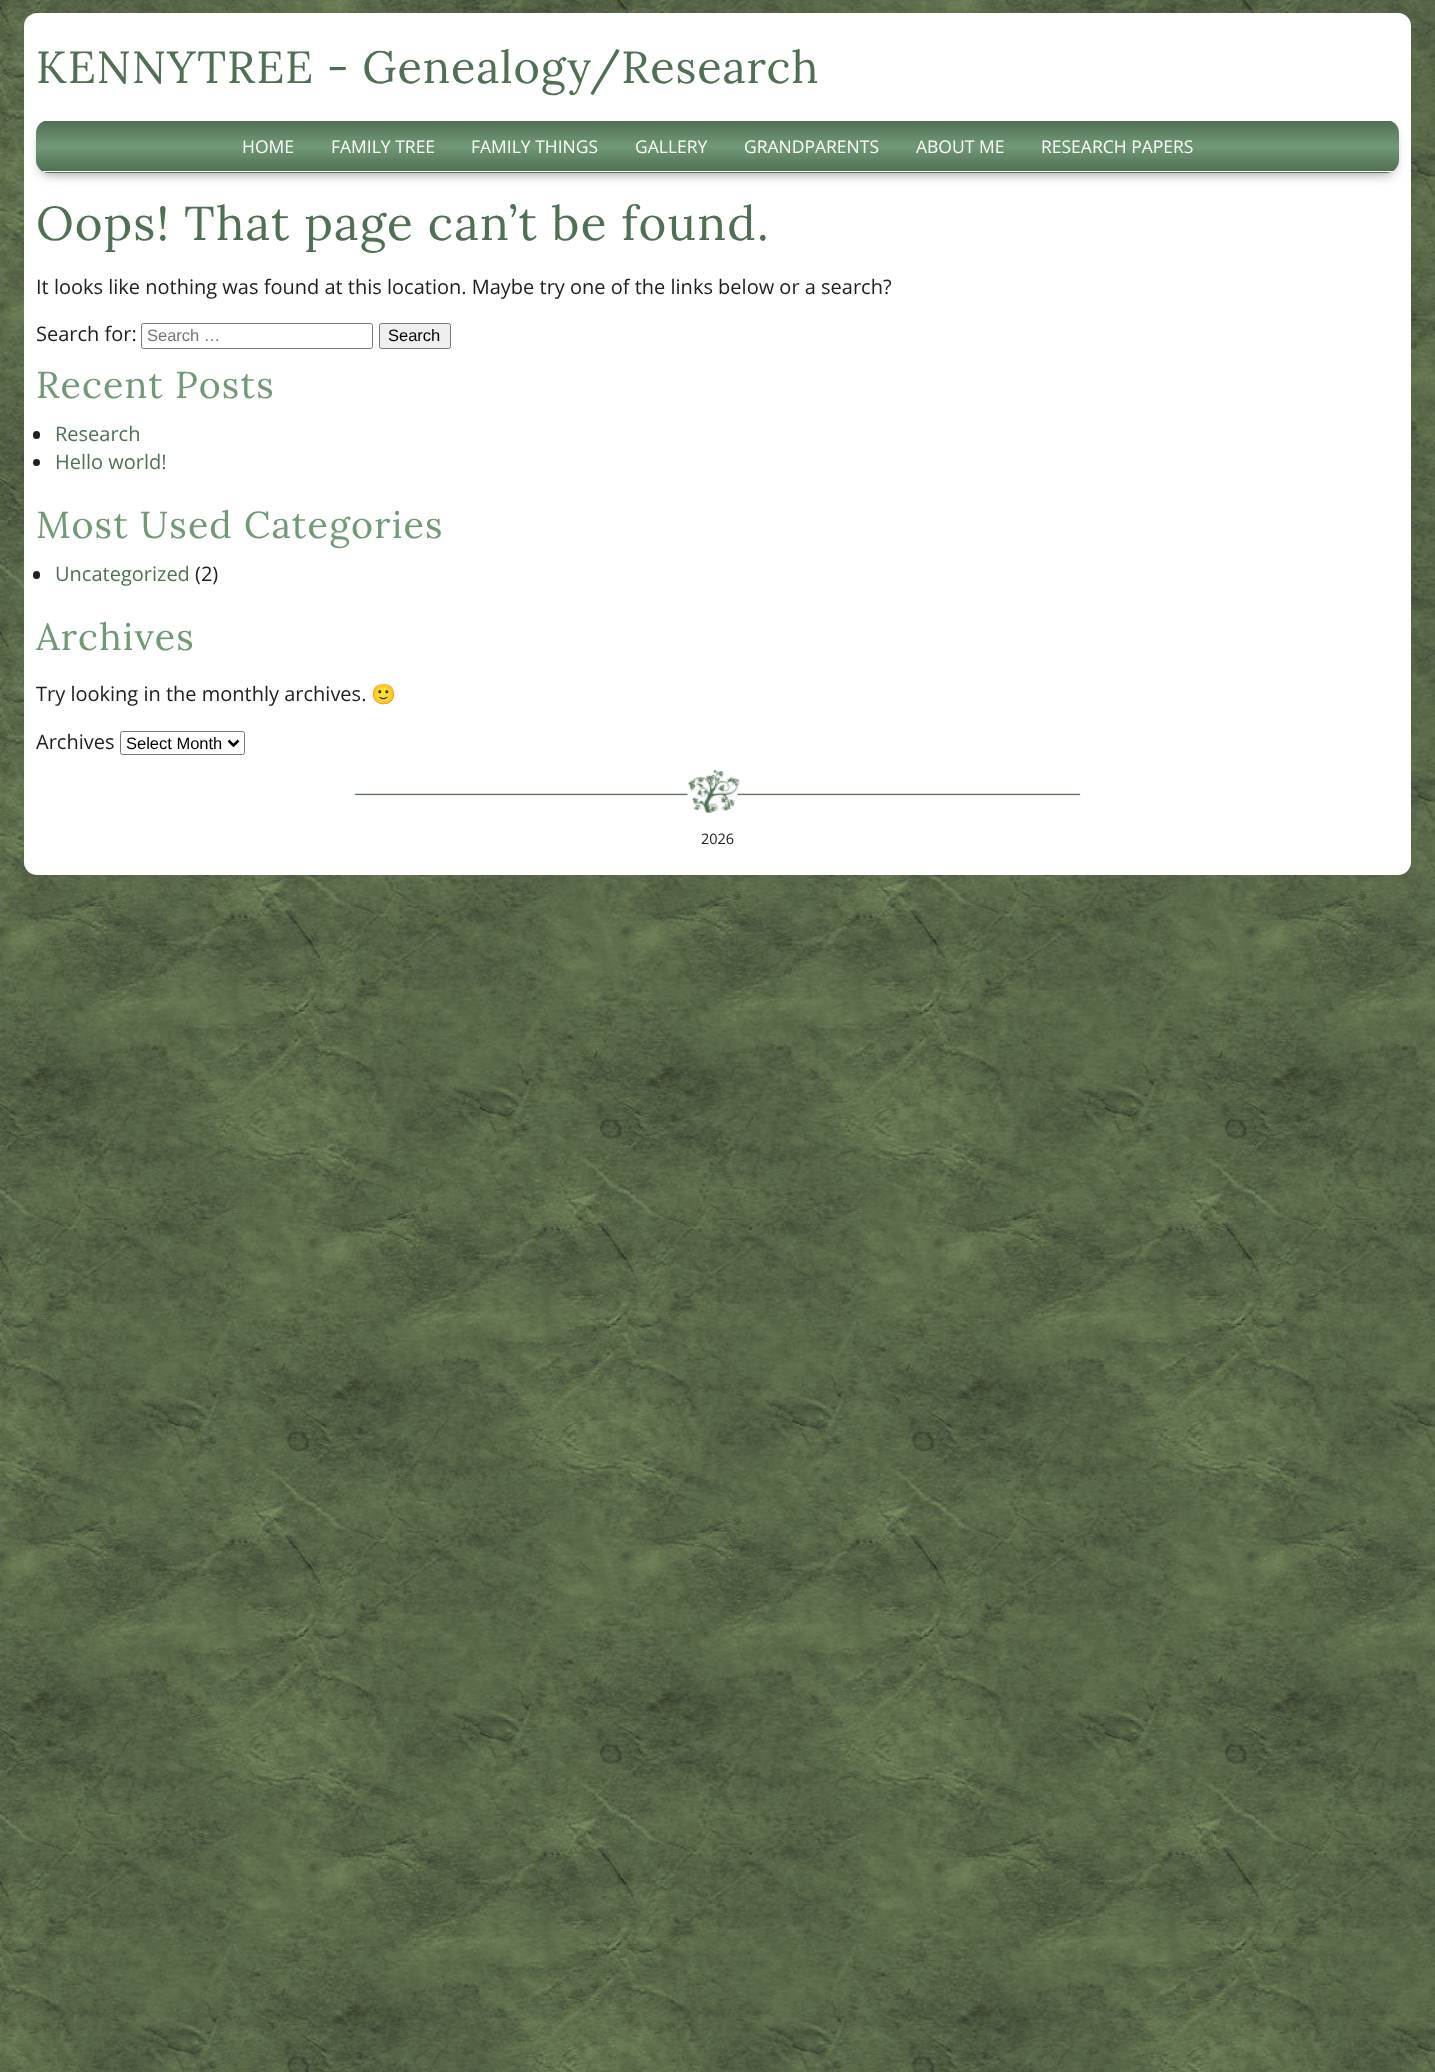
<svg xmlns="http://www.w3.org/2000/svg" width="1435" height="2072">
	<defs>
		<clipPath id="clip1"><rect x="36" y="120" width="1363" height="53" rx="13" /></clipPath>
		<linearGradient id="g1" gradientUnits="userSpaceOnUse" x1="718" y1="121" x2="718" y2="171"><stop offset="0" stop-color="#516F54" /><stop offset="0.5" stop-color="#719977" /><stop offset="1" stop-color="#516F54" /></linearGradient>
		<linearGradient id="g2" gradientUnits="userSpaceOnUse" x1="718" y1="171" x2="718" y2="221"><stop offset="0" stop-color="#516F54" /><stop offset="0.5" stop-color="#719977" /><stop offset="1" stop-color="#516F54" /></linearGradient>
	</defs>
	<rect width="100%" height="100%" fill="#FFFFFF" />
	<image x="0" y="0" width="1435" height="2072" href="assets/img1.png" />
	<rect x="24" y="13" width="1387" height="862" rx="13" fill="#FFFFFF" />
	<text x="36" y="83" font-family="Lora" font-size="45" letter-spacing="0.9" fill="#516F54">KENNYTREE - Genealogy/Research</text>
	<rect x="41" y="131" width="1353" height="43" rx="8" fill="#000000" fill-opacity="0.4" filter="blur(6px)" />
	<g clip-path="url(#clip1)">
		<rect x="36" y="121" width="1363" height="50" fill="url(#g1)" />
		<rect x="36" y="171" width="1363" height="2" fill="url(#g2)" />
	</g>
	<rect x="43" y="120" width="1350" height="1" fill="#FFFFFF" />
	<rect x="43" y="171" width="1350" height="1" fill="#FFFFFF" />
	<g font-family="Open Sans" font-size="17.5" fill="#FFFFFF">
		<text x="242" y="153">HOME</text>
		<text x="331" y="153">FAMILY TREE</text>
		<text x="471" y="153">FAMILY THINGS</text>
		<text x="635" y="153">GALLERY</text>
		<text x="744" y="153">GRANDPARENTS</text>
		<text x="916" y="153">ABOUT ME</text>
		<text x="1041" y="153">RESEARCH PAPERS</text>
	</g>
	<text x="36" y="240" font-family="Lora" font-size="47.5" letter-spacing="1.25" fill="#516F54">Oops! That page can’t be found.</text>
	<g font-family="Open Sans" font-size="20" fill="#202020">
		<text x="36" y="294">It looks like nothing was found at this location. Maybe try one of the links below or a search?</text>
		<text x="36" y="341">Search for:</text>
	</g>
	<rect x="141.5" y="323.5" width="231" height="25" rx="2" fill="none" stroke="#767676" />
	<text x="147" y="341" font-family="Liberation Sans" font-size="16.5" fill="#757575">Search …</text>
	<rect x="379.5" y="323.5" width="71" height="25" rx="2" fill="#EFEFEF" stroke="#767676" />
	<text x="388" y="341" font-family="Liberation Sans" font-size="16.5" fill="#000000">Search</text>
	<text x="36" y="398" font-family="Lora" font-size="37.5" letter-spacing="1.25" fill="#719977">Recent Posts</text>
	<rect x="33" y="431" width="7" height="8" rx="3.5" fill="#202020" />
	<text x="55" y="441" font-family="Open Sans" font-size="20" fill="#516F54">Research</text>
	<circle cx="36.5" cy="462.5" r="3.5" fill="#202020" />
	<text x="55" y="469" font-family="Open Sans" font-size="20" fill="#516F54">Hello world!</text>
	<text x="36" y="538" font-family="Lora" font-size="37.5" letter-spacing="1.25" fill="#719977">Most Used Categories</text>
	<rect x="33" y="571" width="7" height="8" rx="3.5" fill="#202020" />
	<text x="55" y="581" font-family="Open Sans" font-size="20" fill="#516F54">Uncategorized</text>
	<text x="195" y="581" font-family="Open Sans" font-size="20" fill="#202020">(2)</text>
	<text x="36" y="650" font-family="Lora" font-size="37.5" letter-spacing="1.25" fill="#719977">Archives</text>
	<text x="36" y="701" font-family="Open Sans" font-size="20" fill="#202020">Try looking in the monthly archives.</text>
	<text x="371" y="701" font-family="Noto Color Emoji" font-size="20" fill="#202020">🙂</text>
	<text x="36" y="749" font-family="Open Sans" font-size="20" fill="#202020">Archives</text>
	<rect x="120.5" y="731.5" width="124" height="23" rx="2" fill="none" stroke="#767676" />
	<path d="M228.5 740.5L233.5 745.5L238.5 740.5" fill="none" stroke="#000000" stroke-width="2.5" />
	<text x="126" y="749" font-family="Liberation Sans" font-size="16.5" fill="#000000">Select Month</text>
	<image x="354" y="769" width="727" height="45" href="assets/img2.png" />
	<text x="701" y="844" font-family="Open Sans" font-size="14.5" fill="#202020">2026</text>
</svg>
